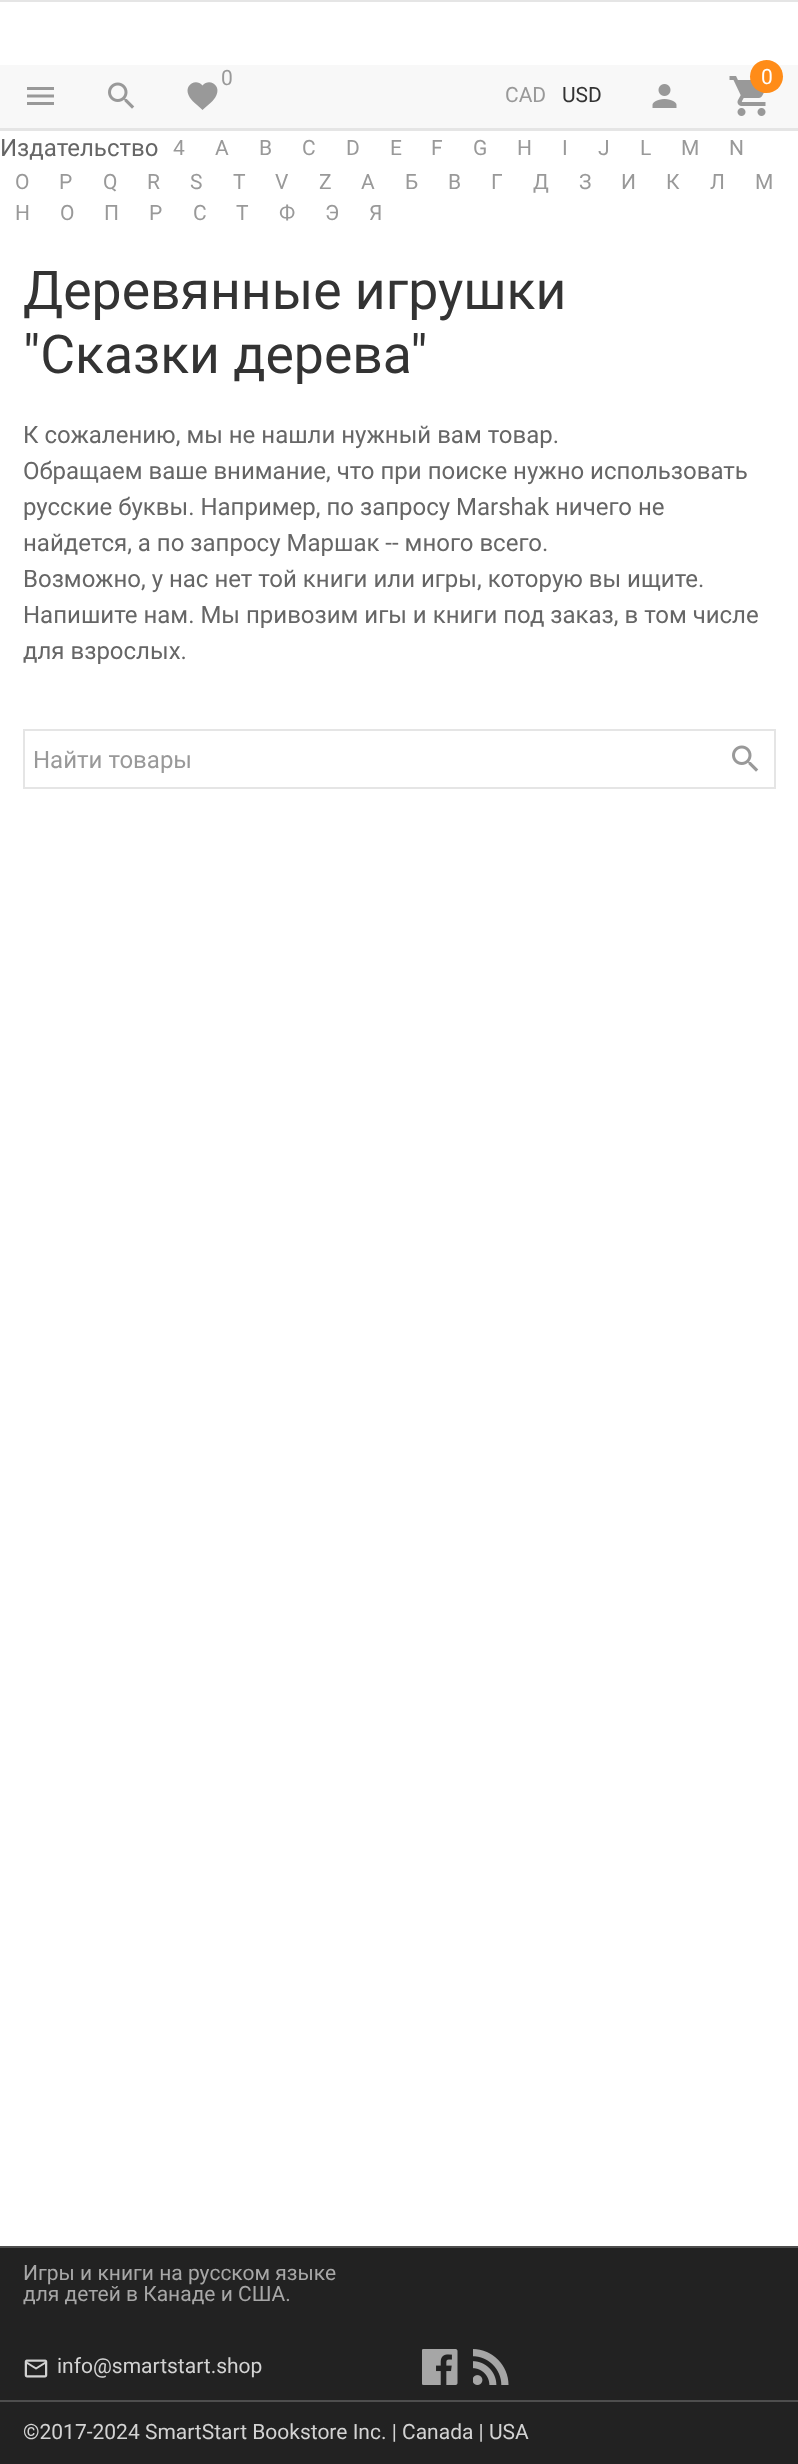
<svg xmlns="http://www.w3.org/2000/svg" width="798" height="2464">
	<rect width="100%" height="100%" fill="#FFFFFF" />
	<rect x="0" y="0" width="798" height="2" fill="#E5E5E5" />
	<rect x="0" y="65" width="798" height="63" fill="#F8F8F8" />
	<rect x="0" y="128" width="798" height="3" fill="#E5E5E5" />
	<text x="221" y="85" font-family="Roboto" font-size="21" fill="#999999">0</text>
	<path d="M202.5 110C198 105.5 191 101 188.5 95C184 85 196 78 202.5 85.5C209 78 221 85 216.5 95C214 101 207.5 105.5 202.5 110Z" fill="#999999" />
	<image x="27" y="87" width="27" height="18" href="assets/img1.png" />
	<image x="108" y="82" width="27" height="27" href="assets/img2.png" />
	<image x="729" y="76" width="37" height="40" href="assets/img3.png" />
	<circle cx="766.5" cy="76.5" r="16.5" fill="#FF8C18" />
	<text x="761" y="84" font-family="Roboto" font-size="21" fill="#FFFFFF">0</text>
	<text x="505" y="102" font-family="Roboto" font-size="21" fill="#999999">CAD</text>
	<text x="562" y="102" font-family="Roboto" font-size="21" fill="#333333">USD</text>
	<image x="652" y="84" width="25" height="24" href="assets/img4.png" />
	<text x="0" y="156" font-family="Roboto" font-size="24" fill="#666666">Издательство</text>
	<g font-family="Roboto" font-size="21" fill="#999999">
		<text x="173" y="155">4</text>
		<text x="215" y="155">A</text>
		<text x="259" y="155">B</text>
		<text x="302" y="155">C</text>
		<text x="346" y="155">D</text>
		<text x="390" y="155">E</text>
		<text x="431" y="155">F</text>
		<text x="473" y="155">G</text>
		<text x="517" y="155">H</text>
		<text x="562" y="155">I</text>
		<text x="598" y="155">J</text>
		<text x="640" y="155">L</text>
		<text x="681" y="155">M</text>
		<text x="729" y="155">N</text>
		<text x="15" y="189">O</text>
		<text x="59" y="189">P</text>
		<text x="103" y="189">Q</text>
		<text x="147" y="189">R</text>
		<text x="190" y="189">S</text>
		<text x="233" y="189">T</text>
		<text x="275" y="189">V</text>
		<text x="319" y="189">Z</text>
		<text x="361" y="189">А</text>
		<text x="405" y="189">Б</text>
		<text x="448" y="189">В</text>
		<text x="491" y="189">Г</text>
		<text x="533" y="189">Д</text>
		<text x="579" y="189">З</text>
		<text x="621" y="189">И</text>
		<text x="666" y="189">К</text>
		<text x="710" y="189">Л</text>
		<text x="755" y="189">М</text>
		<text x="15" y="220">Н</text>
		<text x="60" y="220">О</text>
		<text x="104" y="220">П</text>
		<text x="149" y="220">Р</text>
		<text x="193" y="220">С</text>
		<text x="236" y="220">Т</text>
		<text x="279" y="220">Ф</text>
		<text x="325" y="220">Э</text>
		<text x="369" y="220">Я</text>
	</g>
	<g font-family="Roboto" font-size="53.5" fill="#333333">
		<text x="23" y="309">Деревянные игрушки</text>
		<text x="23" y="373">"Сказки дерева"</text>
	</g>
	<g font-family="Roboto" font-size="24" fill="#666666">
		<text x="23" y="443">К сожалению, мы не нашли нужный вам товар.</text>
		<text x="23" y="479">Обращаем ваше внимание, что при поиске нужно использовать</text>
		<text x="23" y="515">русские буквы. Например, по запросу Marshak ничего не</text>
		<text x="23" y="551">найдется, а по запросу Маршак -- много всего.</text>
		<text x="23" y="587">Возможно, у нас нет той книги или игры, которую вы ищите.</text>
		<text x="23" y="623">Напишите нам. Мы привозим игы и книги под заказ, в том числе</text>
		<text x="23" y="659">для взрослых.</text>
	</g>
	<rect x="24" y="730" width="751" height="58" fill="none" stroke="#E5E5E5" stroke-width="2" />
	<text x="33" y="768" font-family="Roboto" font-size="24" fill="#999999">Найти товары</text>
	<image x="732" y="745" width="27" height="27" href="assets/img5.png" />
	<rect x="0" y="2248" width="798" height="152" fill="#222222" />
	<rect x="0" y="2246" width="798" height="2" fill="#4E4E4E" />
	<g font-family="Roboto" font-size="21" fill="#A7A7A7">
		<text x="23" y="2280">Игры и книги на русском языке</text>
		<text x="23" y="2301">для детей в Канаде и США.</text>
	</g>
	<image x="24" y="2359" width="24" height="19" href="assets/img6.png" />
	<text x="57" y="2373" font-family="Roboto" font-size="21" fill="#D3D3D3">info@smartstart.shop</text>
	<image x="422" y="2349" width="36" height="36" href="assets/img7.png" />
	<image x="473" y="2349" width="36" height="36" href="assets/img8.png" />
	<rect x="0" y="2402" width="798" height="62" fill="#222222" />
	<rect x="0" y="2400" width="798" height="2" fill="#4E4E4E" />
	<text x="23" y="2439" font-family="Roboto" font-size="21" fill="#D3D3D3">©2017-2024 SmartStart Bookstore Inc. | Canada | USA</text>
</svg>
